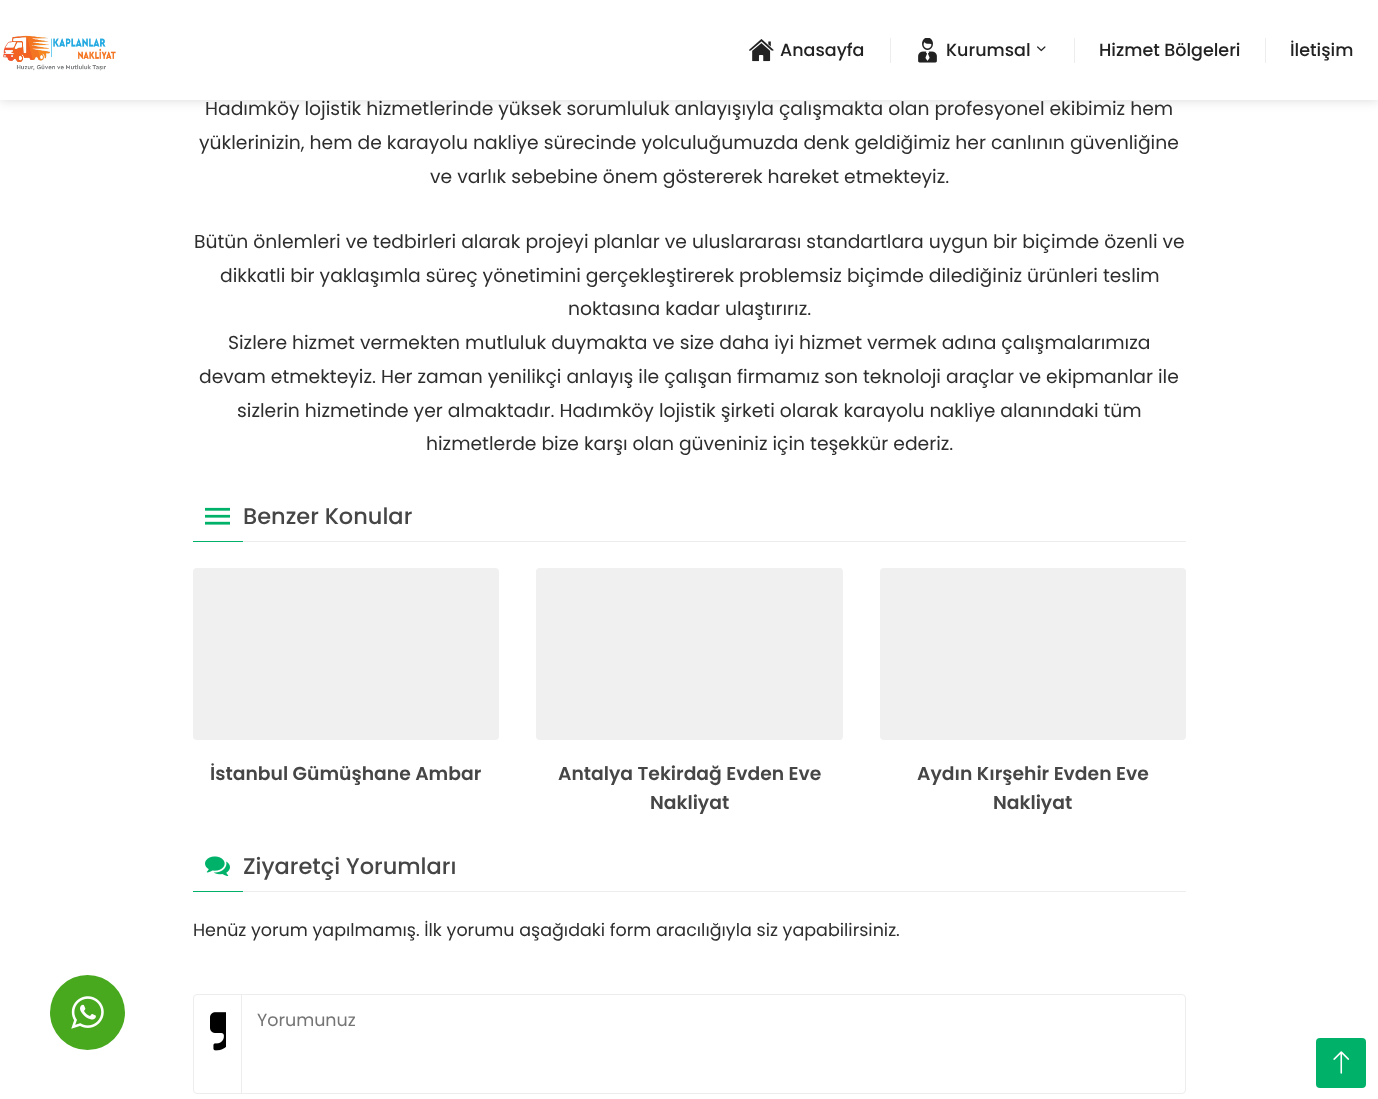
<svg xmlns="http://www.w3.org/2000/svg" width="1378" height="1099">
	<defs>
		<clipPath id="clip1"><rect x="536" y="568" width="307" height="172" rx="4" /></clipPath>
	</defs>
	<rect width="100%" height="100%" fill="#FFFFFF" />
	<rect x="0" y="0" width="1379" height="100" fill="#000000" fill-opacity="0.15" filter="blur(6px)" />
	<rect x="0" y="0" width="1378" height="100" fill="#FFFFFF" />
	<image x="3" y="35" width="113" height="36" href="assets/img1.png" />
	<image x="749" y="39" width="25" height="23" href="assets/img2.png" />
	<text x="780" y="56" font-family="Poppins" font-size="17.5" font-weight="500" fill="#222222">Anasayfa</text>
	<rect x="890" y="38" width="1" height="25" fill="#EDEDED" />
	<image x="918" y="38" width="19" height="25" href="assets/img3.png" />
	<text x="946" y="56" font-family="Poppins" font-size="17.5" font-weight="500" fill="#222222">Kurumsal</text>
	<image x="1037" y="46" width="9" height="6" href="assets/img4.png" />
	<rect x="1074" y="38" width="1" height="25" fill="#EDEDED" />
	<text x="1099" y="56" font-family="Poppins" font-size="17.5" font-weight="500" fill="#222222">Hizmet Bölgeleri</text>
	<rect x="1265" y="38" width="1" height="25" fill="#EDEDED" />
	<text x="1290" y="56" font-family="Poppins" font-size="17.5" font-weight="500" fill="#222222">İletişim</text>
	<circle cx="87.5" cy="1012.5" r="37.5" fill="#48A91F" />
	<image x="71" y="996" width="33" height="33" href="assets/img5.png" />
	<g font-family="Poppins" font-size="18.75" fill="#2E2E2E">
		<text x="205" y="115">Hadımköy lojistik hizmetlerinde yüksek sorumluluk anlayışıyla çalışmakta olan profesyonel ekibimiz hem</text>
		<text x="199" y="149">yüklerinizin, hem de karayolu nakliye sürecinde yolculuğumuzda denk geldiğimiz her canlının güvenliğine</text>
		<text x="430" y="183">ve varlık sebebine önem göstererek hareket etmekteyiz.</text>
		<text x="194" y="248">Bütün önlemleri ve tedbirleri alarak projeyi planlar ve uluslararası standartlara uygun bir biçimde özenli ve</text>
		<text x="220" y="282">dikkatli bir yaklaşımla süreç yönetimini gerçekleştirerek problemsiz biçimde dilediğiniz ürünleri teslim</text>
		<text x="568" y="315">noktasına kadar ulaştırırız.</text>
		<text x="228" y="349">Sizlere hizmet vermekten mutluluk duymakta ve size daha iyi hizmet vermek adına çalışmalarımıza</text>
		<text x="199" y="383">devam etmekteyiz. Her zaman yenilikçi anlayış ile çalışan firmamız son teknoloji araçlar ve ekipmanlar ile</text>
		<text x="237" y="417">sizlerin hizmetinde yer almaktadır. Hadımköy lojistik şirketi olarak karayolu nakliye alanındaki tüm</text>
		<text x="426" y="450">hizmetlerde bize karşı olan güveniniz için teşekkür ederiz.</text>
	</g>
	<image x="205" y="507" width="25" height="18" href="assets/img6.png" />
	<text x="243" y="524" font-family="Poppins" font-size="22.5" font-weight="500" fill="#464646">Benzer Konular</text>
	<rect x="193" y="541" width="50" height="1" fill="#00B169" />
	<rect x="243" y="541" width="943" height="1" fill="#EDEDED" />
	<rect x="193" y="568" width="306" height="172" rx="4" fill="#F0F0F0" />
	<text x="210" y="780" font-family="Poppins" font-size="18.75" font-weight="600" fill="#464646">İstanbul Gümüşhane Ambar</text>
	<rect x="536" y="568" width="307" height="172" rx="4" fill="#F0F0F0" />
	<g clip-path="url(#clip1)">
		<path d="M540 568H842V740H540C538 740 536 738 536 736V572C536 570 538 568 540 568Z" fill="#F0F0F0" />
	</g>
	<g font-family="Poppins" font-size="18.75" font-weight="600" fill="#464646">
		<text x="558" y="780">Antalya Tekirdağ Evden Eve</text>
		<text x="650" y="809">Nakliyat</text>
	</g>
	<rect x="880" y="568" width="306" height="172" rx="4" fill="#F0F0F0" />
	<g font-family="Poppins" font-size="18.75" font-weight="600" fill="#464646">
		<text x="917" y="780">Aydın Kırşehir Evden Eve</text>
		<text x="993" y="809">Nakliyat</text>
	</g>
	<image x="205" y="856" width="25" height="20" href="assets/img7.png" />
	<text x="243" y="874" font-family="Poppins" font-size="22.5" font-weight="500" fill="#464646">Ziyaretçi Yorumları</text>
	<rect x="193" y="891" width="50" height="1" fill="#00B169" />
	<rect x="243" y="891" width="943" height="1" fill="#EDEDED" />
	<text x="193" y="936" font-family="Poppins" font-size="17.5" fill="#2E2E2E">Henüz yorum yapılmamış. İlk yorumu aşağıdaki form aracılığıyla siz yapabilirsiniz.</text>
	<rect x="193.5" y="994.5" width="992" height="99" rx="3.5" fill="none" stroke="#EDEDED" />
	<rect x="241" y="994" width="1" height="100" fill="#EDEDED" />
	<image x="210" y="1012" width="16" height="39" href="assets/img8.png" />
	<text x="257" y="1026" font-family="Poppins" font-size="17.5" fill="#757575">Yorumunuz</text>
	<rect x="1316" y="1038" width="50" height="50" rx="4" fill="#00B169" />
	<image x="1333" y="1051" width="17" height="23" href="assets/img9.png" />
</svg>
